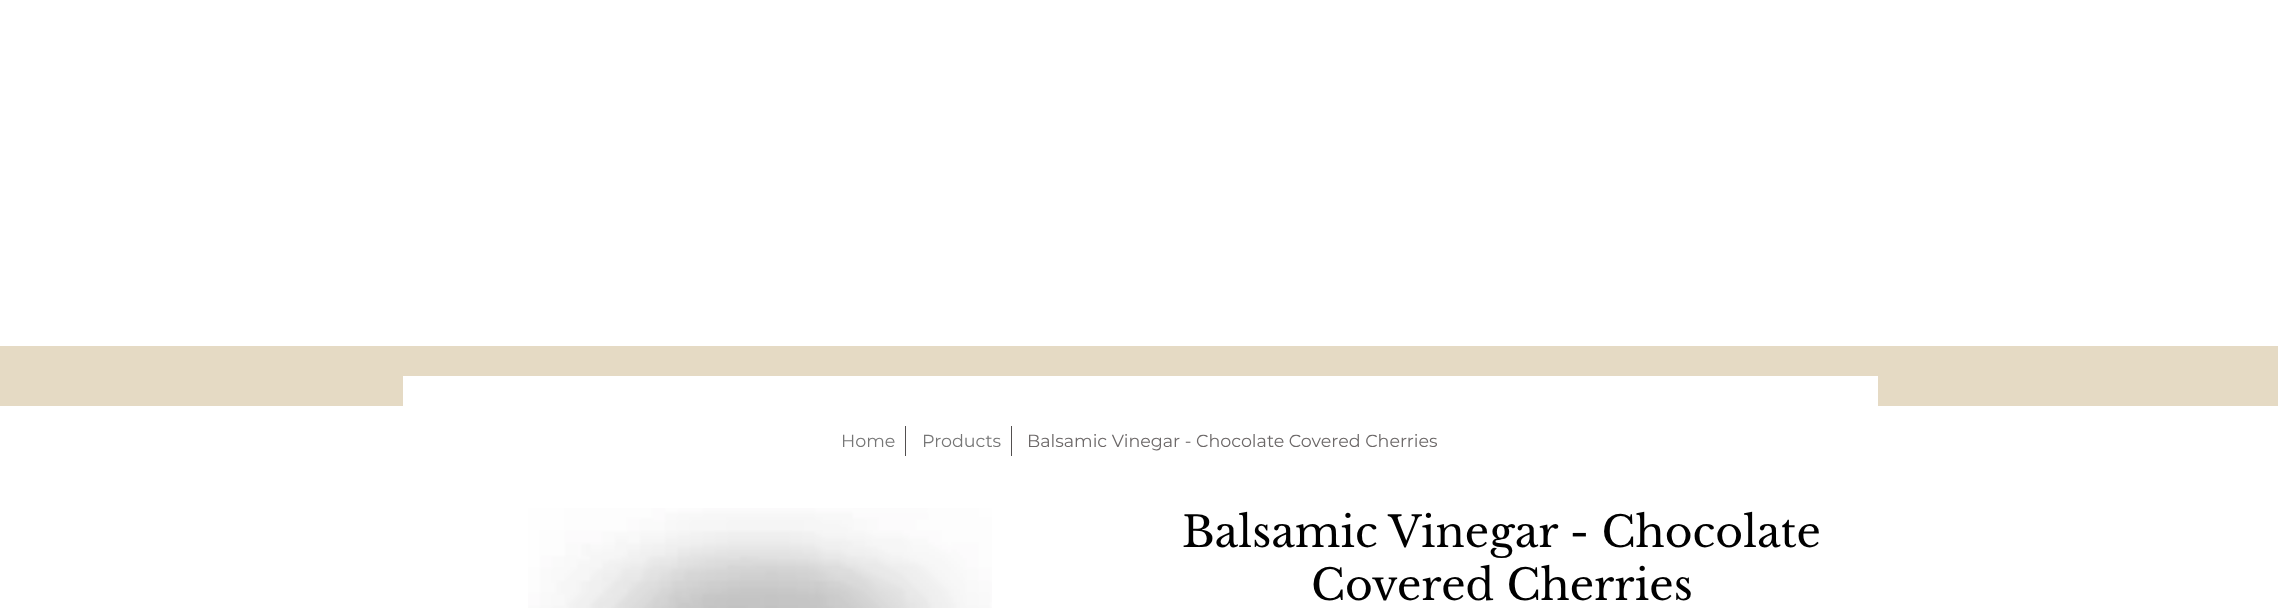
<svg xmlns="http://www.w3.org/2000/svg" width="2278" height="608">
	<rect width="100%" height="100%" fill="#FFFFFF" />
	<rect x="0" y="346" width="2278" height="60" fill="#E5DAC4" />
	<rect x="403" y="376" width="1475" height="30" fill="#FFFFFF" />
	<text x="841" y="447" font-family="Montserrat" font-size="17.5" fill="#767676">Home</text>
	<rect x="905" y="426" width="1" height="30" fill="#524F4F" />
	<text x="922" y="447" font-family="Montserrat" font-size="17.5" fill="#767676">Products</text>
	<rect x="1011" y="426" width="1" height="30" fill="#524F4F" />
	<text x="1027" y="447" font-family="Montserrat" font-size="17.5" fill="#6C6868">Balsamic Vinegar - Chocolate Covered Cherries</text>
	<image x="528" y="508" width="464" height="100" href="assets/img1.png" />
	<g font-family="Libre Baskerville" font-size="42.5" fill="#000000">
		<text x="1182" y="547">Balsamic Vinegar - Chocolate</text>
		<text x="1311" y="600">Covered Cherries</text>
	</g>
</svg>
